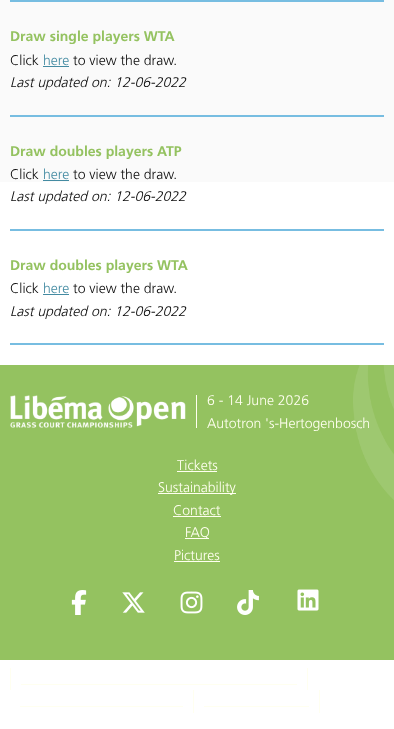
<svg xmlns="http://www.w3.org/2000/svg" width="394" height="729">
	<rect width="100%" height="100%" fill="#FFFFFF" />
	<rect x="0" y="0" width="394" height="182" fill="#FAFAFA" />
	<rect x="10" y="0" width="374" height="2" fill="#77BDE1" />
	<text x="10" y="41" font-family="Frutiger" font-size="14" font-weight="700" fill="#94C260">Draw single players WTA</text>
	<text x="10" y="65" font-family="Frutiger" font-size="14" font-weight="300" fill="#0A0A0A">Click</text>
	<text x="43" y="65" font-family="Frutiger" font-size="14" font-weight="300" fill="#448BA2">here</text>
	<rect x="43" y="66" width="26" height="1" fill="#448BA2" />
	<text x="73" y="65" font-family="Frutiger" font-size="14" font-weight="300" fill="#0A0A0A">to view the draw.</text>
	<text x="10" y="87" font-family="Frutiger" font-size="14" font-weight="300" font-style="italic" fill="#0A0A0A">Last updated on: 12-06-2022</text>
	<rect x="10" y="115" width="374" height="2" fill="#77BDE1" />
	<text x="10" y="156" font-family="Frutiger" font-size="14" font-weight="700" fill="#94C260">Draw doubles players ATP</text>
	<text x="10" y="179" font-family="Frutiger" font-size="14" font-weight="300" fill="#0A0A0A">Click</text>
	<text x="43" y="179" font-family="Frutiger" font-size="14" font-weight="300" fill="#448BA2">here</text>
	<rect x="43" y="180" width="26" height="1" fill="#448BA2" />
	<text x="73" y="179" font-family="Frutiger" font-size="14" font-weight="300" fill="#0A0A0A">to view the draw.</text>
	<text x="10" y="201" font-family="Frutiger" font-size="14" font-weight="300" font-style="italic" fill="#0A0A0A">Last updated on: 12-06-2022</text>
	<rect x="10" y="229" width="374" height="2" fill="#77BDE1" />
	<text x="10" y="270" font-family="Frutiger" font-size="14" font-weight="700" fill="#94C260">Draw doubles players WTA</text>
	<text x="10" y="293" font-family="Frutiger" font-size="14" font-weight="300" fill="#0A0A0A">Click</text>
	<text x="43" y="293" font-family="Frutiger" font-size="14" font-weight="300" fill="#448BA2">here</text>
	<rect x="43" y="294" width="26" height="1" fill="#448BA2" />
	<text x="73" y="293" font-family="Frutiger" font-size="14" font-weight="300" fill="#0A0A0A">to view the draw.</text>
	<text x="10" y="316" font-family="Frutiger" font-size="14" font-weight="300" font-style="italic" fill="#0A0A0A">Last updated on: 12-06-2022</text>
	<rect x="10" y="343" width="374" height="2" fill="#77BDE1" />
	<rect x="0" y="365" width="394" height="295" fill="#94C260" />
	<image x="353" y="365" width="41" height="135" href="assets/img1.png" />
	<rect x="196" y="395" width="1" height="33" fill="#FFFFF0" />
	<image x="10" y="395" width="176" height="33" href="assets/img2.png" />
	<g font-family="Frutiger" font-size="14" font-weight="300" fill="#FFFFF0">
		<text x="207" y="405">6 - 14 June 2026</text>
		<text x="207" y="428">Autotron 's-Hertogenbosch</text>
		<text x="177" y="470">Tickets</text>
	</g>
	<rect x="177" y="471" width="40" height="1" fill="#FFFFF0" />
	<rect x="158" y="493" width="78" height="1" fill="#FFFFF0" />
	<g font-family="Frutiger" font-size="14" font-weight="300" fill="#FFFFF0">
		<text x="158" y="492">Sustainability</text>
		<text x="173" y="515">Contact</text>
	</g>
	<rect x="173" y="516" width="48" height="1" fill="#FFFFF0" />
	<rect x="185" y="538" width="24" height="1" fill="#FFFFF0" />
	<g font-family="Frutiger" font-size="14" font-weight="300" fill="#FFFFF0">
		<text x="185" y="537">FAQ</text>
		<text x="174" y="560">Pictures</text>
	</g>
	<rect x="174" y="561" width="46" height="1" fill="#FFFFF0" />
	<image x="71" y="590" width="16" height="25" href="assets/img3.png" />
	<image x="122" y="592" width="23" height="21" href="assets/img4.png" />
	<image x="180" y="591" width="23" height="23" href="assets/img5.png" />
	<image x="237" y="590" width="22" height="25" href="assets/img6.png" />
	<image x="297" y="589" width="22" height="22" href="assets/img7.png" />
	<rect x="307" y="668" width="1" height="22" fill="#FFFFF0" />
	<rect x="10" y="668" width="1" height="22" fill="#FFFFF0" />
	<rect x="21" y="684" width="276" height="1" fill="#FFFFF0" />
	<rect x="193" y="690" width="1" height="23" fill="#FFFFF0" />
	<rect x="20" y="706" width="163" height="1" fill="#FFFFF0" />
	<rect x="319" y="690" width="1" height="23" fill="#FFFFF0" />
	<rect x="204" y="706" width="105" height="1" fill="#FFFFF0" />
</svg>
